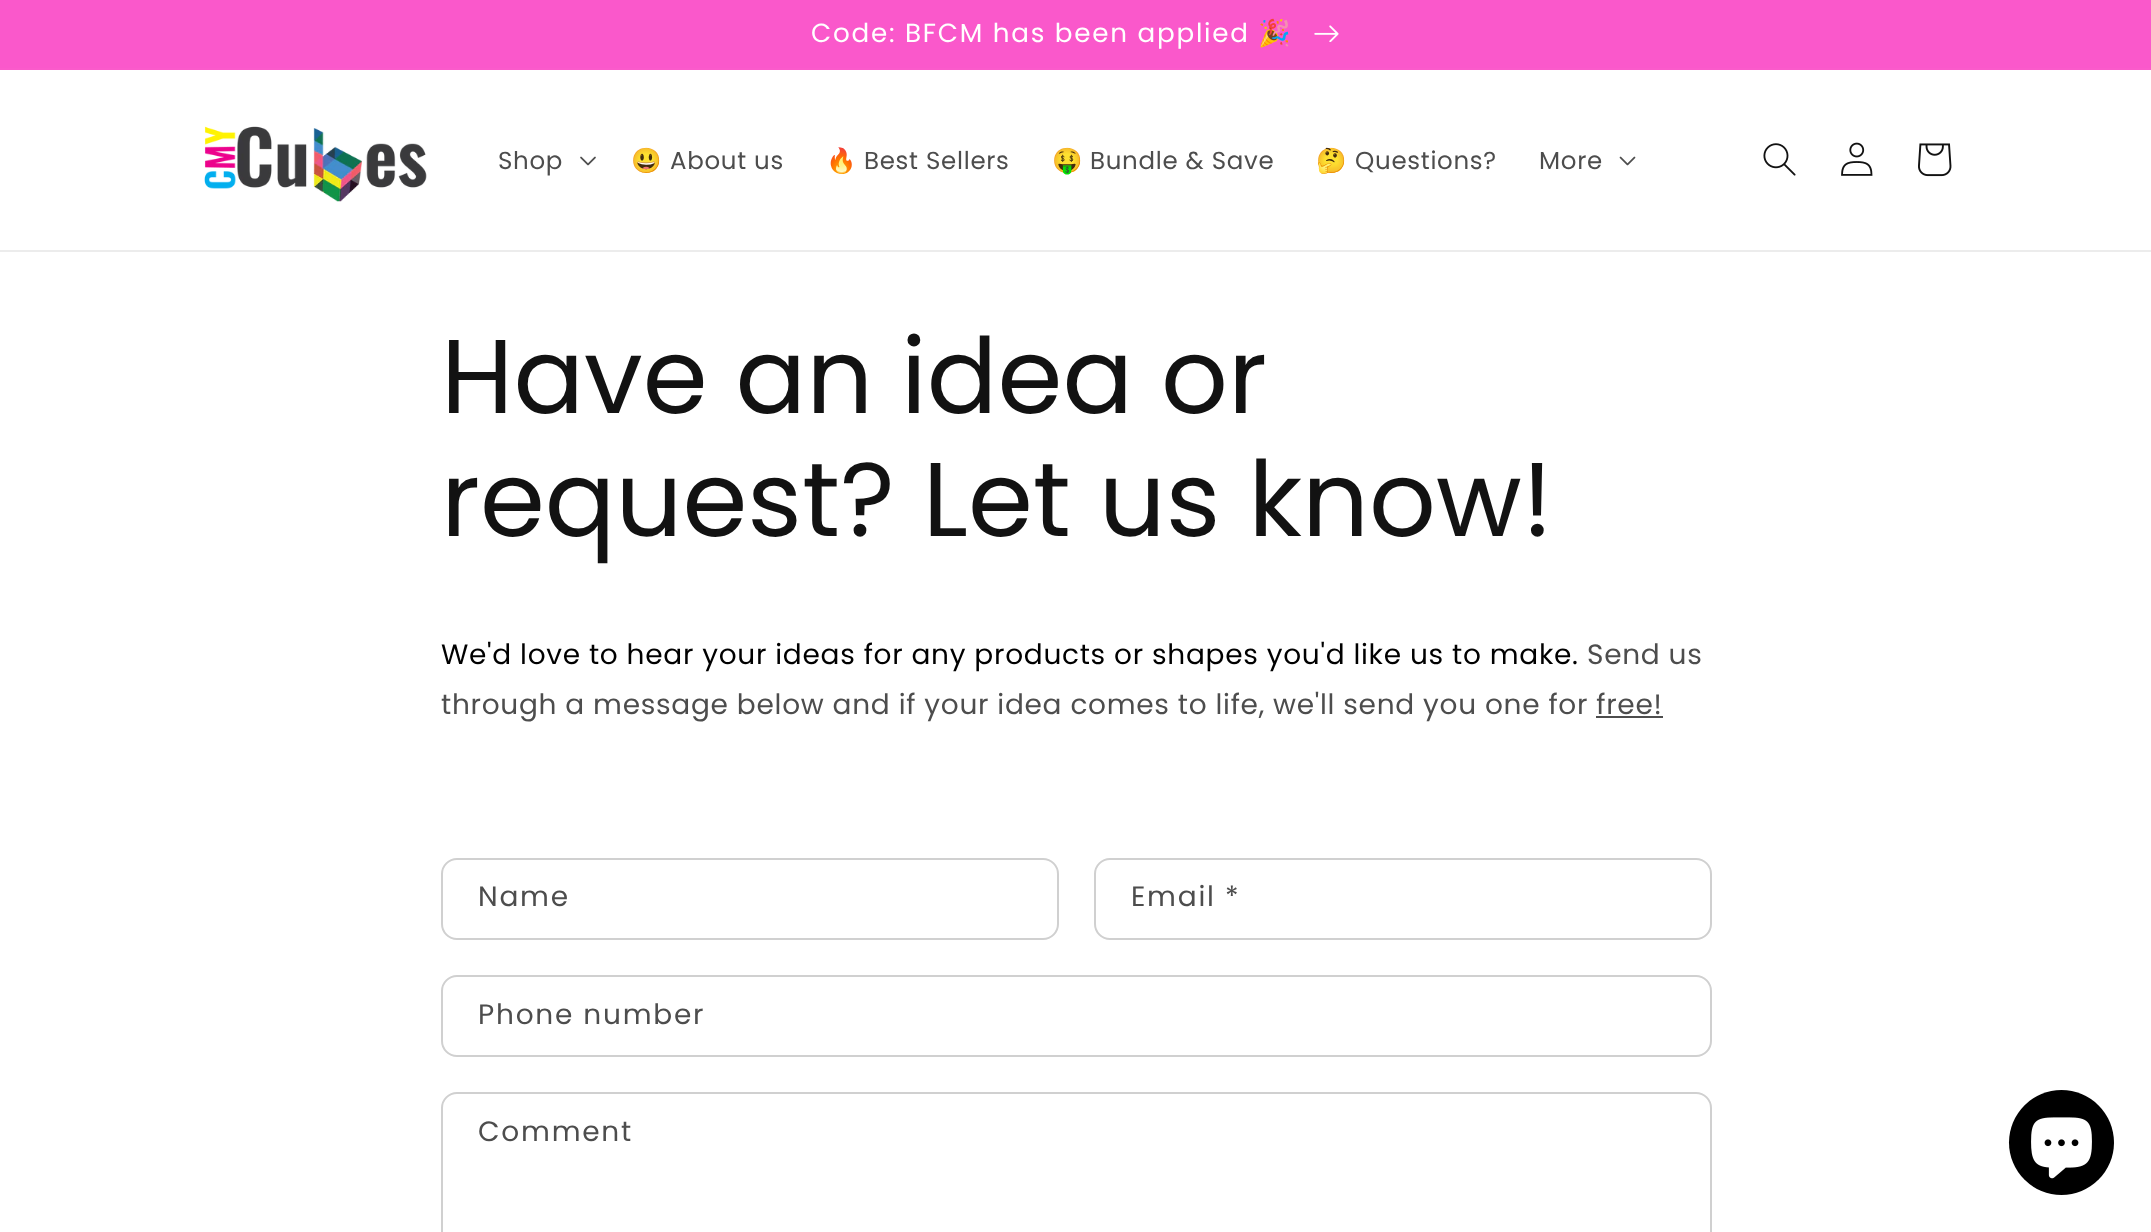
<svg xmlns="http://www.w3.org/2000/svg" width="2151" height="1232">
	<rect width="100%" height="100%" fill="#FFFFFF" />
	<rect x="0" y="68" width="2151" height="2" fill="#FA5BCB" />
	<rect x="0" y="0" width="2151" height="68" fill="#FA58CB" />
	<text x="811" y="42" font-family="Poppins" font-size="26.2" letter-spacing="1.75" fill="#FFFFFF">Code: BFCM has been applied</text>
	<text x="1258" y="42" font-family="Noto Color Emoji" font-size="26.2" letter-spacing="1.75" fill="#FFFFFF">🎉</text>
	<image x="1314" y="25" width="25" height="17" href="assets/img1.png" />
	<rect x="0" y="250" width="2151" height="2" fill="#ECECEC" />
	<image x="204" y="126" width="223" height="76" href="assets/img2.png" />
	<text x="498" y="169" font-family="Poppins" font-size="24.5" letter-spacing="0.7" fill="#4D4D4D">Shop</text>
	<image x="580" y="156" width="16" height="10" href="assets/img3.png" />
	<text x="631" y="169" font-family="Noto Color Emoji" font-size="24.5" letter-spacing="0.7" fill="#4D4D4D">😃</text>
	<text x="670" y="169" font-family="Poppins" font-size="24.5" letter-spacing="0.7" fill="#4D4D4D">About us</text>
	<text x="826" y="169" font-family="Noto Color Emoji" font-size="24.5" letter-spacing="0.7" fill="#4D4D4D">🔥</text>
	<text x="864" y="169" font-family="Poppins" font-size="24.5" letter-spacing="0.7" fill="#4D4D4D">Best Sellers</text>
	<text x="1052" y="169" font-family="Noto Color Emoji" font-size="24.5" letter-spacing="0.7" fill="#4D4D4D">🤑</text>
	<text x="1090" y="169" font-family="Poppins" font-size="24.5" letter-spacing="0.7" fill="#4D4D4D">Bundle &amp; Save</text>
	<text x="1316" y="169" font-family="Noto Color Emoji" font-size="24.5" letter-spacing="0.7" fill="#4D4D4D">🤔</text>
	<g font-family="Poppins" font-size="24.5" letter-spacing="0.7" fill="#4D4D4D">
		<text x="1355" y="169">Questions?</text>
		<text x="1539" y="169">More</text>
	</g>
	<image x="1619" y="156" width="17" height="10" href="assets/img4.png" />
	<image x="1763" y="143" width="33" height="33" href="assets/img5.png" />
	<image x="1841" y="142" width="32" height="34" href="assets/img6.png" />
	<image x="1918" y="143" width="34" height="34" href="assets/img7.png" />
	<g font-family="Poppins" font-size="104.6" fill="#121212">
		<text x="441" y="413">Have an idea or</text>
		<text x="441" y="536">request? Let us know!</text>
	</g>
	<text x="441" y="664" font-family="Poppins" font-size="28" letter-spacing="0.7" fill="#000000">We'd love to hear your ideas for any products or shapes you'd like us to make.</text>
	<g font-family="Poppins" font-size="28" letter-spacing="0.7" fill="#4D4D4D">
		<text x="1587" y="664">Send us</text>
		<text x="441" y="714">through a message below and if your idea comes to life, we'll send you one for free!</text>
	</g>
	<rect x="1596" y="716" width="67" height="2" fill="#4D4D4D" />
	<rect x="442" y="859" width="616" height="80" rx="15" fill="none" stroke="#D0D0D0" stroke-width="2" />
	<text x="478" y="906" font-family="Poppins" font-size="28" letter-spacing="1.75" fill="#4D4D4D">Name</text>
	<rect x="1095" y="859" width="616" height="80" rx="15" fill="none" stroke="#D0D0D0" stroke-width="2" />
	<text x="1131" y="906" font-family="Poppins" font-size="28" letter-spacing="1.75" fill="#4D4D4D">Email *</text>
	<rect x="442" y="976" width="1269" height="80" rx="15" fill="none" stroke="#D0D0D0" stroke-width="2" />
	<text x="478" y="1024" font-family="Poppins" font-size="28" letter-spacing="1.75" fill="#4D4D4D">Phone number</text>
	<rect x="442" y="1093" width="1269" height="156" rx="15" fill="none" stroke="#D0D0D0" stroke-width="2" />
	<text x="478" y="1141" font-family="Poppins" font-size="28" letter-spacing="1.75" fill="#4D4D4D">Comment</text>
	<circle cx="2061.5" cy="1142.5" r="52.5" fill="#000000" />
	<image x="2031" y="1117" width="61" height="62" href="assets/img8.png" />
</svg>
